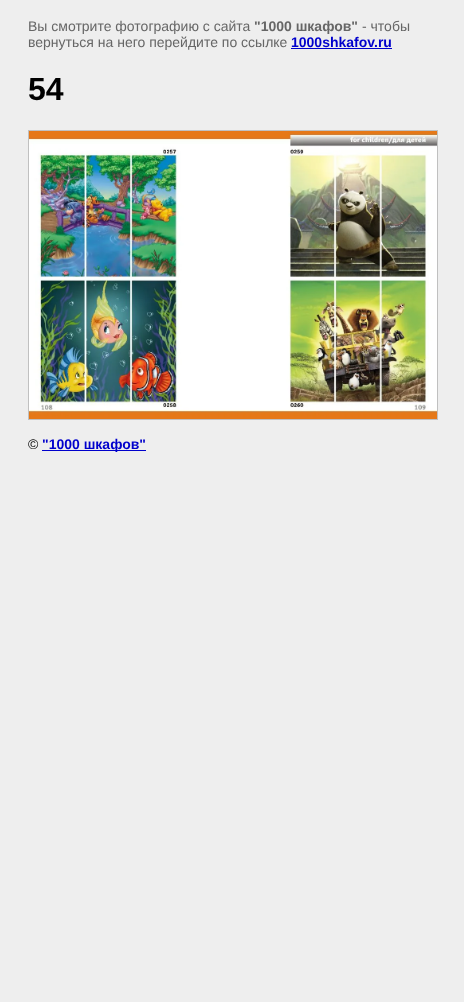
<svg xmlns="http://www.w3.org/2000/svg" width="464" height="1002">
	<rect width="100%" height="100%" fill="#EEEEEE" />
	<text x="28" y="31" font-family="Liberation Sans" font-size="14" fill="#666666">Вы смотрите фотографию с сайта</text>
	<text x="254" y="31" font-family="Liberation Sans" font-size="14" font-weight="700" fill="#666666">"1000 шкафов"</text>
	<g font-family="Liberation Sans" font-size="14" fill="#666666">
		<text x="362" y="31">- чтобы</text>
		<text x="28" y="47">вернуться на него перейдите по ссылке</text>
	</g>
	<text x="291" y="47" font-family="Liberation Sans" font-size="14" font-weight="700" fill="#0000CC">1000shkafov.ru</text>
	<rect x="291" y="48" width="101" height="1" fill="#0000CC" />
	<text x="28" y="100" font-family="Liberation Sans" font-size="32" font-weight="700" fill="#000000">54</text>
	<rect x="28.5" y="130.5" width="409" height="289" fill="none" stroke="#C0C0C0" />
	<image x="29" y="131" width="408" height="288" href="assets/img1.png" />
	<text x="28" y="449" font-family="Liberation Sans" font-size="14" fill="#000000">©</text>
	<rect x="42" y="450" width="104" height="1" fill="#0000CC" />
	<text x="42" y="449" font-family="Liberation Sans" font-size="14" font-weight="700" fill="#0000CC">"1000 шкафов"</text>
</svg>
